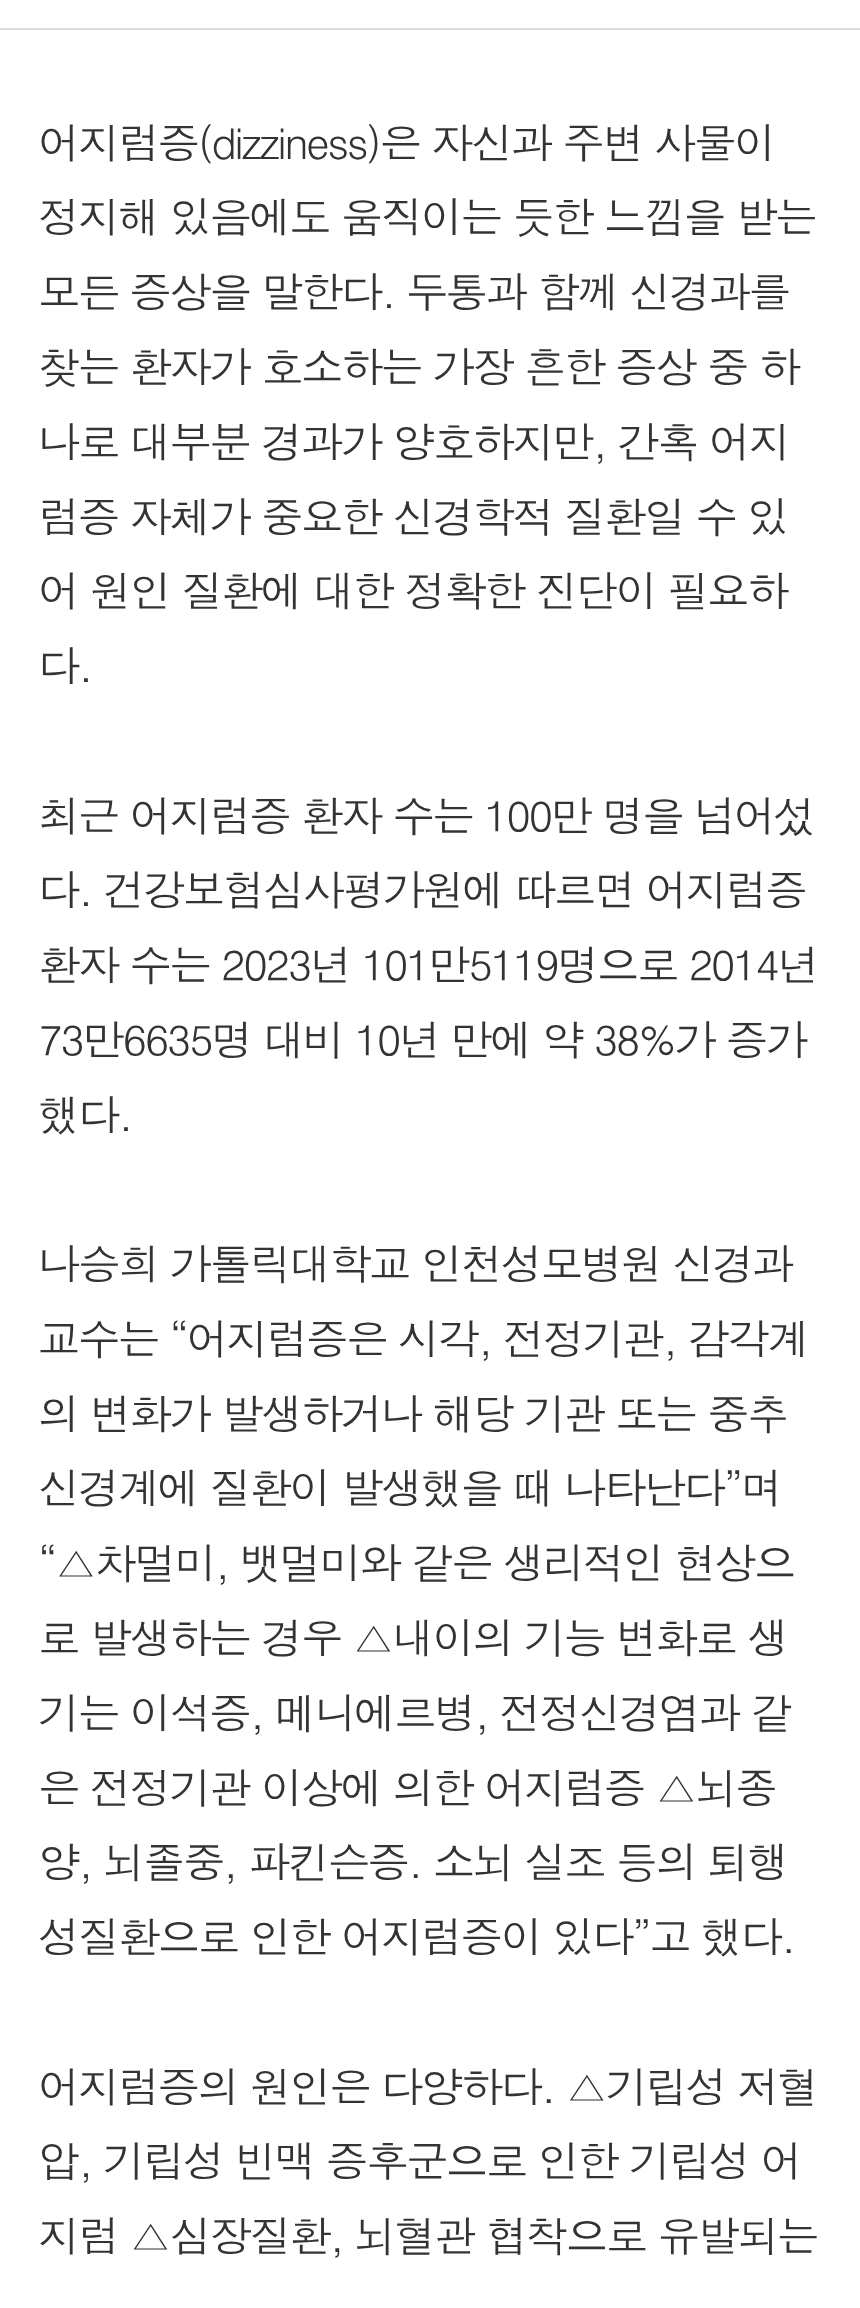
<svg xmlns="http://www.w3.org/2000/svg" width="860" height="2308">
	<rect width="100%" height="100%" fill="#FFFFFF" />
	<rect x="0" y="28" width="860" height="2" fill="#DDDDDD" />
	<g font-family="Dotum" font-size="42.5" letter-spacing="-2.55" fill="#333333">
		<text x="38" y="159">어지럼증(dizziness)은 자신과 주변 사물이</text>
		<text x="38" y="233">정지해 있음에도 움직이는 듯한 느낌을 받는</text>
		<text x="38" y="308">모든 증상을 말한다. 두통과 함께 신경과를</text>
		<text x="38" y="383">찾는 환자가 호소하는 가장 흔한 증상 중 하</text>
		<text x="38" y="458">나로 대부분 경과가 양호하지만, 간혹 어지</text>
		<text x="38" y="533">럼증 자체가 중요한 신경학적 질환일 수 있</text>
		<text x="38" y="607">어 원인 질환에 대한 정확한 진단이 필요하</text>
		<text x="38" y="682">다.</text>
		<text x="38" y="832">최근 어지럼증 환자 수는 100만 명을 넘어섰</text>
		<text x="38" y="906">다. 건강보험심사평가원에 따르면 어지럼증</text>
		<text x="38" y="981">환자 수는 2023년 101만5119명으로 2014년</text>
		<text x="38" y="1056">73만6635명 대비 10년 만에 약 38%가 증가</text>
		<text x="38" y="1131">했다.</text>
		<text x="38" y="1280">나승희 가톨릭대학교 인천성모병원 신경과</text>
		<text x="38" y="1355">교수는 “어지럼증은 시각, 전정기관, 감각계</text>
		<text x="38" y="1430">의 변화가 발생하거나 해당 기관 또는 중추</text>
		<text x="38" y="1504">신경계에 질환이 발생했을 때 나타난다”며</text>
		<text x="38" y="1579">“△차멀미, 뱃멀미와 같은 생리적인 현상으</text>
		<text x="38" y="1654">로 발생하는 경우 △내이의 기능 변화로 생</text>
		<text x="38" y="1729">기는 이석증, 메니에르병, 전정신경염과 같</text>
		<text x="38" y="1804">은 전정기관 이상에 의한 어지럼증 △뇌종</text>
		<text x="38" y="1878">양, 뇌졸중, 파킨슨증. 소뇌 실조 등의 퇴행</text>
		<text x="38" y="1953">성질환으로 인한 어지럼증이 있다”고 했다.</text>
		<text x="38" y="2103">어지럼증의 원인은 다양하다. △기립성 저혈</text>
		<text x="38" y="2177">압, 기립성 빈맥 증후군으로 인한 기립성 어</text>
		<text x="38" y="2252">지럼 △심장질환, 뇌혈관 협착으로 유발되는</text>
	</g>
</svg>
